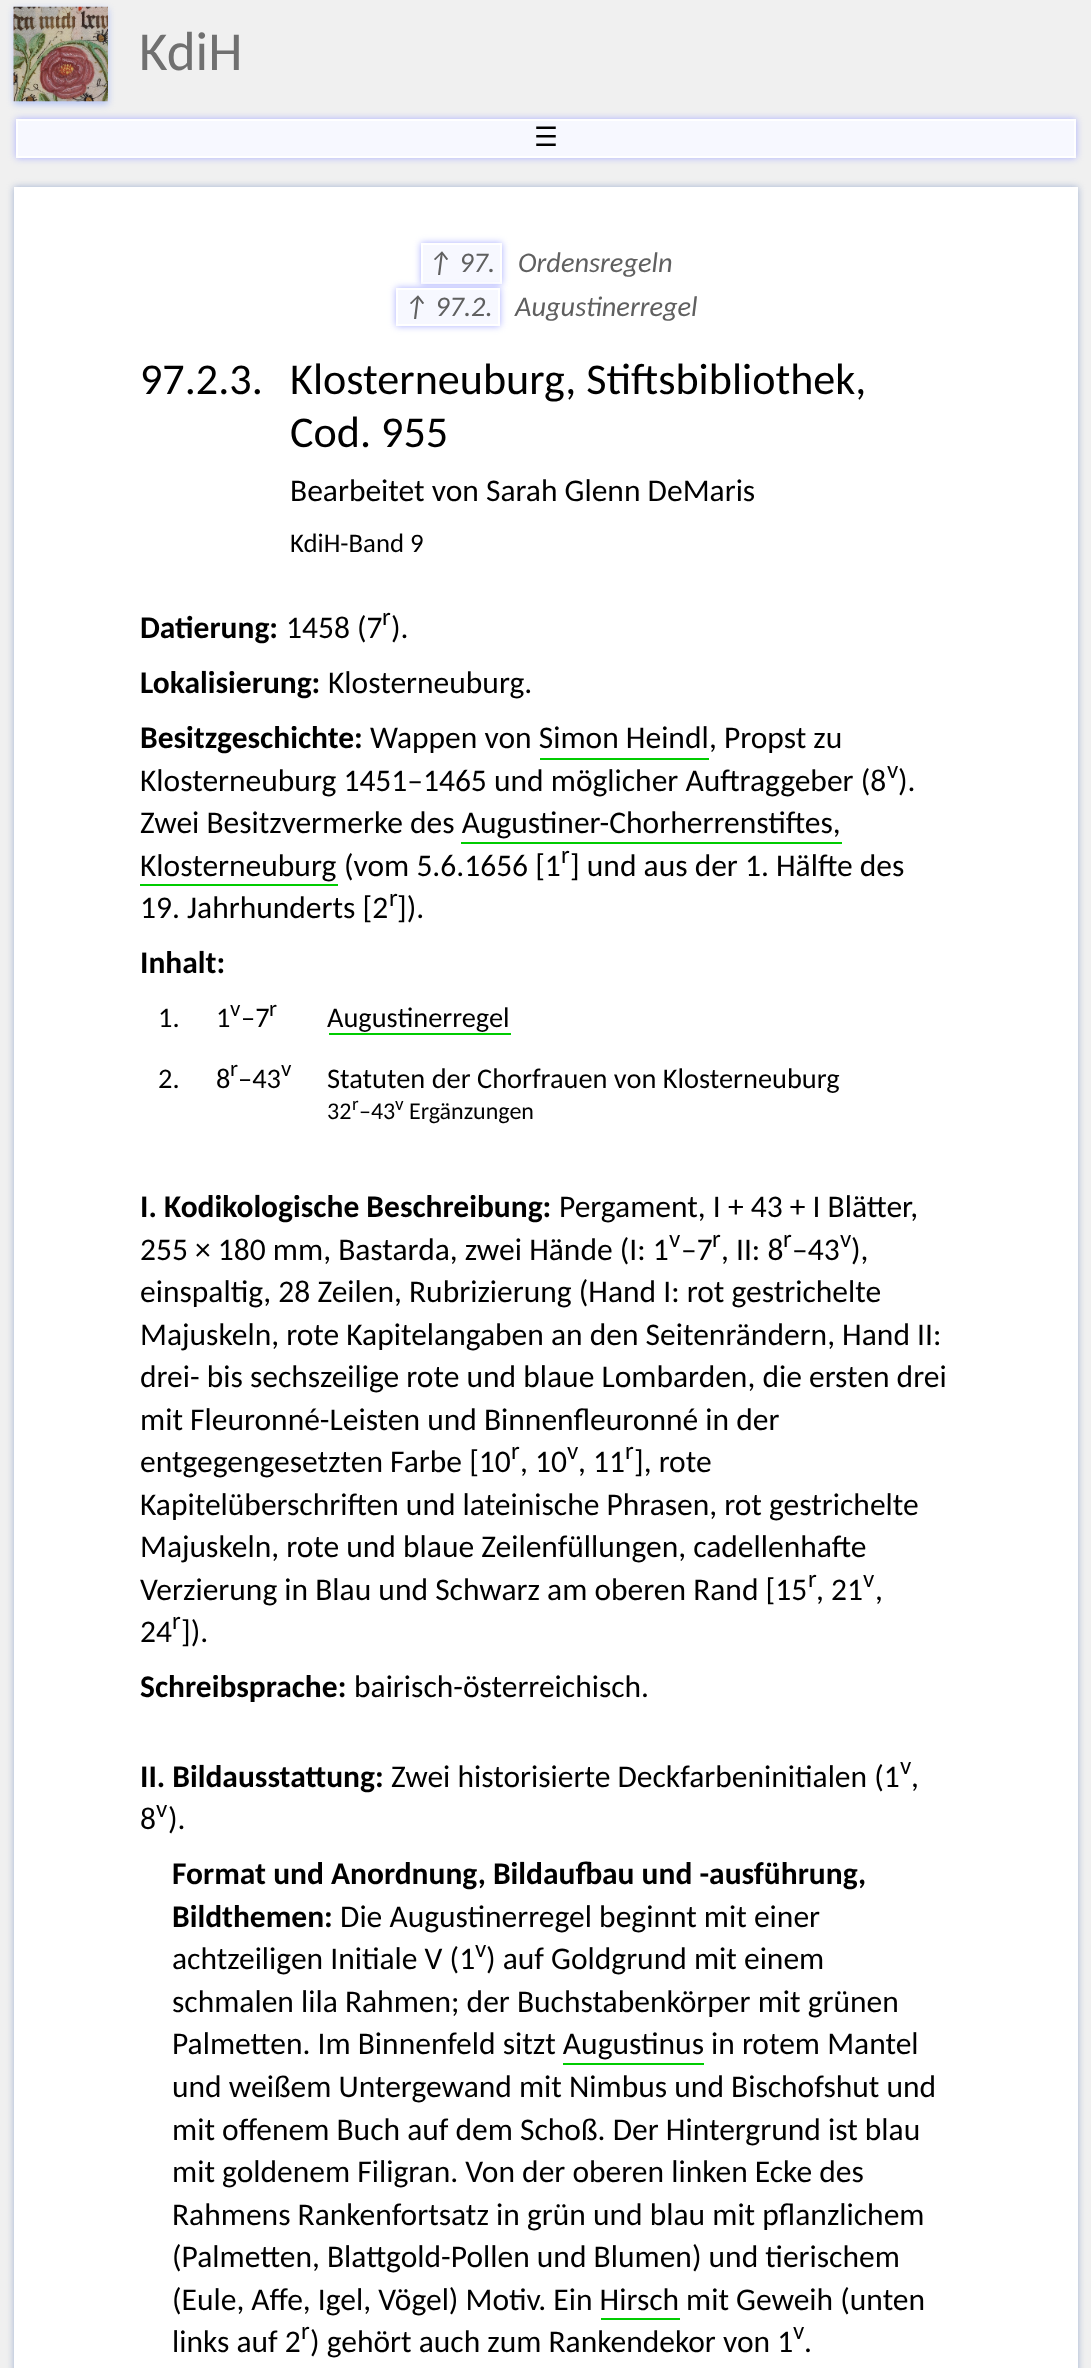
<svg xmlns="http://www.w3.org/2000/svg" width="1091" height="2368">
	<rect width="100%" height="100%" fill="#F0F0F0" />
	<rect x="14" y="9" width="94" height="95" fill="#B0C0F4" filter="blur(3.5px)" />
	<image x="13" y="6" width="95" height="96" href="assets/img1.png" />
	<text x="139" y="70" font-family="Carlito" font-size="55" fill="#707070">KdiH</text>
	<rect x="16" y="119" width="1060" height="39" fill="#AAAFFF" filter="blur(3.5px)" />
	<rect x="17" y="120" width="1058" height="37" fill="#F7F8FF" stroke="#FFFFFF" stroke-width="2" />
	<text x="534" y="146" font-family="DejaVu Sans" font-size="26.75" fill="#000000">☰</text>
	<rect x="14" y="187" width="1064" height="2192" fill="#A0B0D0" filter="blur(3.5px)" />
	<rect x="14" y="187" width="1064" height="2181" fill="#FFFFFF" />
	<rect x="421" y="243" width="81" height="41" fill="#AAAFFF" filter="blur(3.5px)" />
	<rect x="422" y="244" width="79" height="39" fill="#F7F8FF" stroke="#FFFFFF" stroke-width="2" />
	<g font-family="Carlito" font-size="28.4" font-style="italic" fill="#606060">
		<text x="427" y="272">↑ 97.</text>
		<text x="518" y="272">Ordensregeln</text>
	</g>
	<rect x="396" y="288" width="104" height="38" fill="#AAAFFF" filter="blur(3.5px)" />
	<rect x="397" y="289" width="102" height="36" fill="#F7F8FF" stroke="#FFFFFF" stroke-width="2" />
	<g font-family="Carlito" font-size="28.4" font-style="italic" fill="#606060">
		<text x="403" y="316">↑ 97.2.</text>
		<text x="515" y="316">Augustinerregel</text>
	</g>
	<g font-family="Carlito" font-size="44.1" fill="#000000">
		<text x="140" y="394">97.2.3.</text>
		<text x="290" y="394">Klosterneuburg, Stiftsbibliothek,</text>
		<text x="290" y="447">Cod. 955</text>
	</g>
	<text x="290" y="501" font-family="Carlito" font-size="31.5" fill="#000000">Bearbeitet von Sarah Glenn DeMaris</text>
	<text x="290" y="552" font-family="Carlito" font-size="26.75" fill="#000000">KdiH-Band 9</text>
	<text x="140" y="638" font-family="Carlito" font-size="31.5" font-weight="700" fill="#000000">Datierung:</text>
	<text x="286" y="638" font-family="Carlito" font-size="31.5" fill="#000000">1458 (7</text>
	<text x="382" y="625" font-family="Carlito" font-size="25" fill="#000000">r</text>
	<text x="391" y="638" font-family="Carlito" font-size="31.5" fill="#000000">).</text>
	<text x="140" y="693" font-family="Carlito" font-size="31.5" font-weight="700" fill="#000000">Lokalisierung:</text>
	<text x="328" y="693" font-family="Carlito" font-size="31.5" fill="#000000">Klosterneuburg.</text>
	<text x="140" y="748" font-family="Carlito" font-size="31.5" font-weight="700" fill="#000000">Besitzgeschichte:</text>
	<text x="370" y="748" font-family="Carlito" font-size="31.5" fill="#000000">Wappen von Simon Heindl</text>
	<rect x="540" y="758" width="169" height="2" fill="#00CC00" />
	<g font-family="Carlito" font-size="31.5" fill="#000000">
		<text x="709" y="748">, Propst zu</text>
		<text x="140" y="791">Klosterneuburg 1451–1465 und möglicher Auftraggeber (8</text>
	</g>
	<text x="887" y="778" font-family="Carlito" font-size="25" fill="#000000">v</text>
	<g font-family="Carlito" font-size="31.5" fill="#000000">
		<text x="898" y="791">).</text>
		<text x="140" y="833">Zwei Besitzvermerke des Augustiner-Chorherrenstiftes,</text>
		<text x="140" y="876">Klosterneuburg</text>
	</g>
	<rect x="140" y="884" width="198" height="2" fill="#00CC00" />
	<text x="344" y="876" font-family="Carlito" font-size="31.5" fill="#000000">(vom 5.6.1656 [1</text>
	<text x="561" y="863" font-family="Carlito" font-size="25" fill="#000000">r</text>
	<rect x="461" y="842" width="381" height="2" fill="#00CC00" />
	<g font-family="Carlito" font-size="31.5" fill="#000000">
		<text x="570" y="876">] und aus der 1. Hälfte des</text>
		<text x="140" y="918">19. Jahrhunderts [2</text>
	</g>
	<text x="389" y="906" font-family="Carlito" font-size="25" fill="#000000">r</text>
	<text x="397" y="918" font-family="Carlito" font-size="31.5" fill="#000000">]).</text>
	<text x="140" y="973" font-family="Carlito" font-size="31.5" font-weight="700" fill="#000000">Inhalt:</text>
	<g font-family="Carlito" font-size="28.4" fill="#000000">
		<text x="158" y="1027">1.</text>
		<text x="216" y="1027">1</text>
	</g>
	<text x="230" y="1016" font-family="Carlito" font-size="23" fill="#000000">v</text>
	<text x="241" y="1027" font-family="Carlito" font-size="28.4" fill="#000000">–7</text>
	<text x="269" y="1016" font-family="Carlito" font-size="23" fill="#000000">r</text>
	<text x="327" y="1027" font-family="Carlito" font-size="28.4" fill="#000000">Augustinerregel</text>
	<rect x="329" y="1033" width="182" height="2" fill="#00CC00" />
	<g font-family="Carlito" font-size="28.4" fill="#000000">
		<text x="158" y="1088">2.</text>
		<text x="216" y="1088">8</text>
	</g>
	<text x="230" y="1076" font-family="Carlito" font-size="23" fill="#000000">r</text>
	<text x="238" y="1088" font-family="Carlito" font-size="28.4" fill="#000000">–43</text>
	<text x="281" y="1076" font-family="Carlito" font-size="23" fill="#000000">v</text>
	<text x="327" y="1088" font-family="Carlito" font-size="28.4" fill="#000000">Statuten der Chorfrauen von Klosterneuburg</text>
	<text x="327" y="1119" font-family="Carlito" font-size="24" fill="#000000">32</text>
	<text x="352" y="1110" font-family="Carlito" font-size="19" fill="#000000">r</text>
	<text x="359" y="1119" font-family="Carlito" font-size="24" fill="#000000">–43</text>
	<text x="395" y="1110" font-family="Carlito" font-size="19" fill="#000000">v</text>
	<text x="409" y="1119" font-family="Carlito" font-size="24" fill="#000000">Ergänzungen</text>
	<text x="140" y="1217" font-family="Carlito" font-size="31.5" font-weight="700" fill="#000000">I. Kodikologische Beschreibung:</text>
	<g font-family="Carlito" font-size="31.5" fill="#000000">
		<text x="559" y="1217">Pergament, I + 43 + I Blätter,</text>
		<text x="140" y="1260">255 × 180 mm, Bastarda, zwei Hände (I: 1</text>
	</g>
	<text x="669" y="1247" font-family="Carlito" font-size="25" fill="#000000">v</text>
	<text x="681" y="1260" font-family="Carlito" font-size="31.5" fill="#000000">–7</text>
	<text x="712" y="1247" font-family="Carlito" font-size="25" fill="#000000">r</text>
	<text x="721" y="1260" font-family="Carlito" font-size="31.5" fill="#000000">, II: 8</text>
	<text x="783" y="1247" font-family="Carlito" font-size="25" fill="#000000">r</text>
	<text x="792" y="1260" font-family="Carlito" font-size="31.5" fill="#000000">–43</text>
	<text x="840" y="1247" font-family="Carlito" font-size="25" fill="#000000">v</text>
	<g font-family="Carlito" font-size="31.5" fill="#000000">
		<text x="851" y="1260">),</text>
		<text x="140" y="1302">einspaltig, 28 Zeilen, Rubrizierung (Hand I: rot gestrichelte</text>
		<text x="140" y="1345">Majuskeln, rote Kapitelangaben an den Seitenrändern, Hand II:</text>
		<text x="140" y="1387">drei- bis sechszeilige rote und blaue Lombarden, die ersten drei</text>
		<text x="140" y="1430">mit Fleuronné-Leisten und Binnenfleuronné in der</text>
		<text x="140" y="1472">entgegengesetzten Farbe [10</text>
	</g>
	<text x="511" y="1459" font-family="Carlito" font-size="25" fill="#000000">r</text>
	<text x="520" y="1472" font-family="Carlito" font-size="31.5" fill="#000000">, 10</text>
	<text x="567" y="1459" font-family="Carlito" font-size="25" fill="#000000">v</text>
	<text x="578" y="1472" font-family="Carlito" font-size="31.5" fill="#000000">, 11</text>
	<text x="625" y="1459" font-family="Carlito" font-size="25" fill="#000000">r</text>
	<g font-family="Carlito" font-size="31.5" fill="#000000">
		<text x="634" y="1472">], rote</text>
		<text x="140" y="1515">Kapitelüberschriften und lateinische Phrasen, rot gestrichelte</text>
		<text x="140" y="1557">Majuskeln, rote und blaue Zeilenfüllungen, cadellenhafte</text>
		<text x="140" y="1600">Verzierung in Blau und Schwarz am oberen Rand [15</text>
	</g>
	<text x="808" y="1587" font-family="Carlito" font-size="25" fill="#000000">r</text>
	<text x="816" y="1600" font-family="Carlito" font-size="31.5" fill="#000000">, 21</text>
	<text x="863" y="1587" font-family="Carlito" font-size="25" fill="#000000">v</text>
	<g font-family="Carlito" font-size="31.5" fill="#000000">
		<text x="875" y="1600">,</text>
		<text x="140" y="1642">24</text>
	</g>
	<text x="172" y="1629" font-family="Carlito" font-size="25" fill="#000000">r</text>
	<text x="181" y="1642" font-family="Carlito" font-size="31.5" fill="#000000">]).</text>
	<text x="140" y="1697" font-family="Carlito" font-size="31.5" font-weight="700" fill="#000000">Schreibsprache:</text>
	<text x="354" y="1697" font-family="Carlito" font-size="31.5" fill="#000000">bairisch-österreichisch.</text>
	<text x="140" y="1787" font-family="Carlito" font-size="31.5" font-weight="700" fill="#000000">II. Bildausstattung:</text>
	<text x="391" y="1787" font-family="Carlito" font-size="31.5" fill="#000000">Zwei historisierte Deckfarbeninitialen (1</text>
	<text x="900" y="1774" font-family="Carlito" font-size="25" fill="#000000">v</text>
	<g font-family="Carlito" font-size="31.5" fill="#000000">
		<text x="911" y="1787">,</text>
		<text x="140" y="1829">8</text>
	</g>
	<text x="156" y="1817" font-family="Carlito" font-size="25" fill="#000000">v</text>
	<text x="168" y="1829" font-family="Carlito" font-size="31.5" fill="#000000">).</text>
	<g font-family="Carlito" font-size="31.5" font-weight="700" fill="#000000">
		<text x="172" y="1884">Format und Anordnung, Bildaufbau und -ausführung,</text>
		<text x="172" y="1927">Bildthemen:</text>
	</g>
	<g font-family="Carlito" font-size="31.5" fill="#000000">
		<text x="340" y="1927">Die Augustinerregel beginnt mit einer</text>
		<text x="172" y="1969">achtzeiligen Initiale V (1</text>
	</g>
	<text x="475" y="1957" font-family="Carlito" font-size="25" fill="#000000">v</text>
	<g font-family="Carlito" font-size="31.5" fill="#000000">
		<text x="486" y="1969">) auf Goldgrund mit einem</text>
		<text x="172" y="2012">schmalen lila Rahmen; der Buchstabenkörper mit grünen</text>
		<text x="172" y="2054">Palmetten. Im Binnenfeld sitzt Augustinus</text>
	</g>
	<rect x="563" y="2063" width="141" height="2" fill="#00CC00" />
	<g font-family="Carlito" font-size="31.5" fill="#000000">
		<text x="711" y="2054">in rotem Mantel</text>
		<text x="172" y="2097">und weißem Untergewand mit Nimbus und Bischofshut und</text>
		<text x="172" y="2140">mit offenem Buch auf dem Schoß. Der Hintergrund ist blau</text>
		<text x="172" y="2182">mit goldenem Filigran. Von der oberen linken Ecke des</text>
		<text x="172" y="2225">Rahmens Rankenfortsatz in grün und blau mit pflanzlichem</text>
		<text x="172" y="2267">(Palmetten, Blattgold-Pollen und Blumen) und tierischem</text>
		<text x="172" y="2310">(Eule, Affe, Igel, Vögel) Motiv. Ein Hirsch</text>
	</g>
	<rect x="601" y="2318" width="79" height="2" fill="#00CC00" />
	<g font-family="Carlito" font-size="31.5" fill="#000000">
		<text x="686" y="2310">mit Geweih (unten</text>
		<text x="172" y="2352">links auf 2</text>
	</g>
	<text x="301" y="2339" font-family="Carlito" font-size="25" fill="#000000">r</text>
	<text x="310" y="2352" font-family="Carlito" font-size="31.5" fill="#000000">) gehört auch zum Rankendekor von 1</text>
	<text x="793" y="2339" font-family="Carlito" font-size="25" fill="#000000">v</text>
	<text x="804" y="2352" font-family="Carlito" font-size="31.5" fill="#000000">.</text>
</svg>
